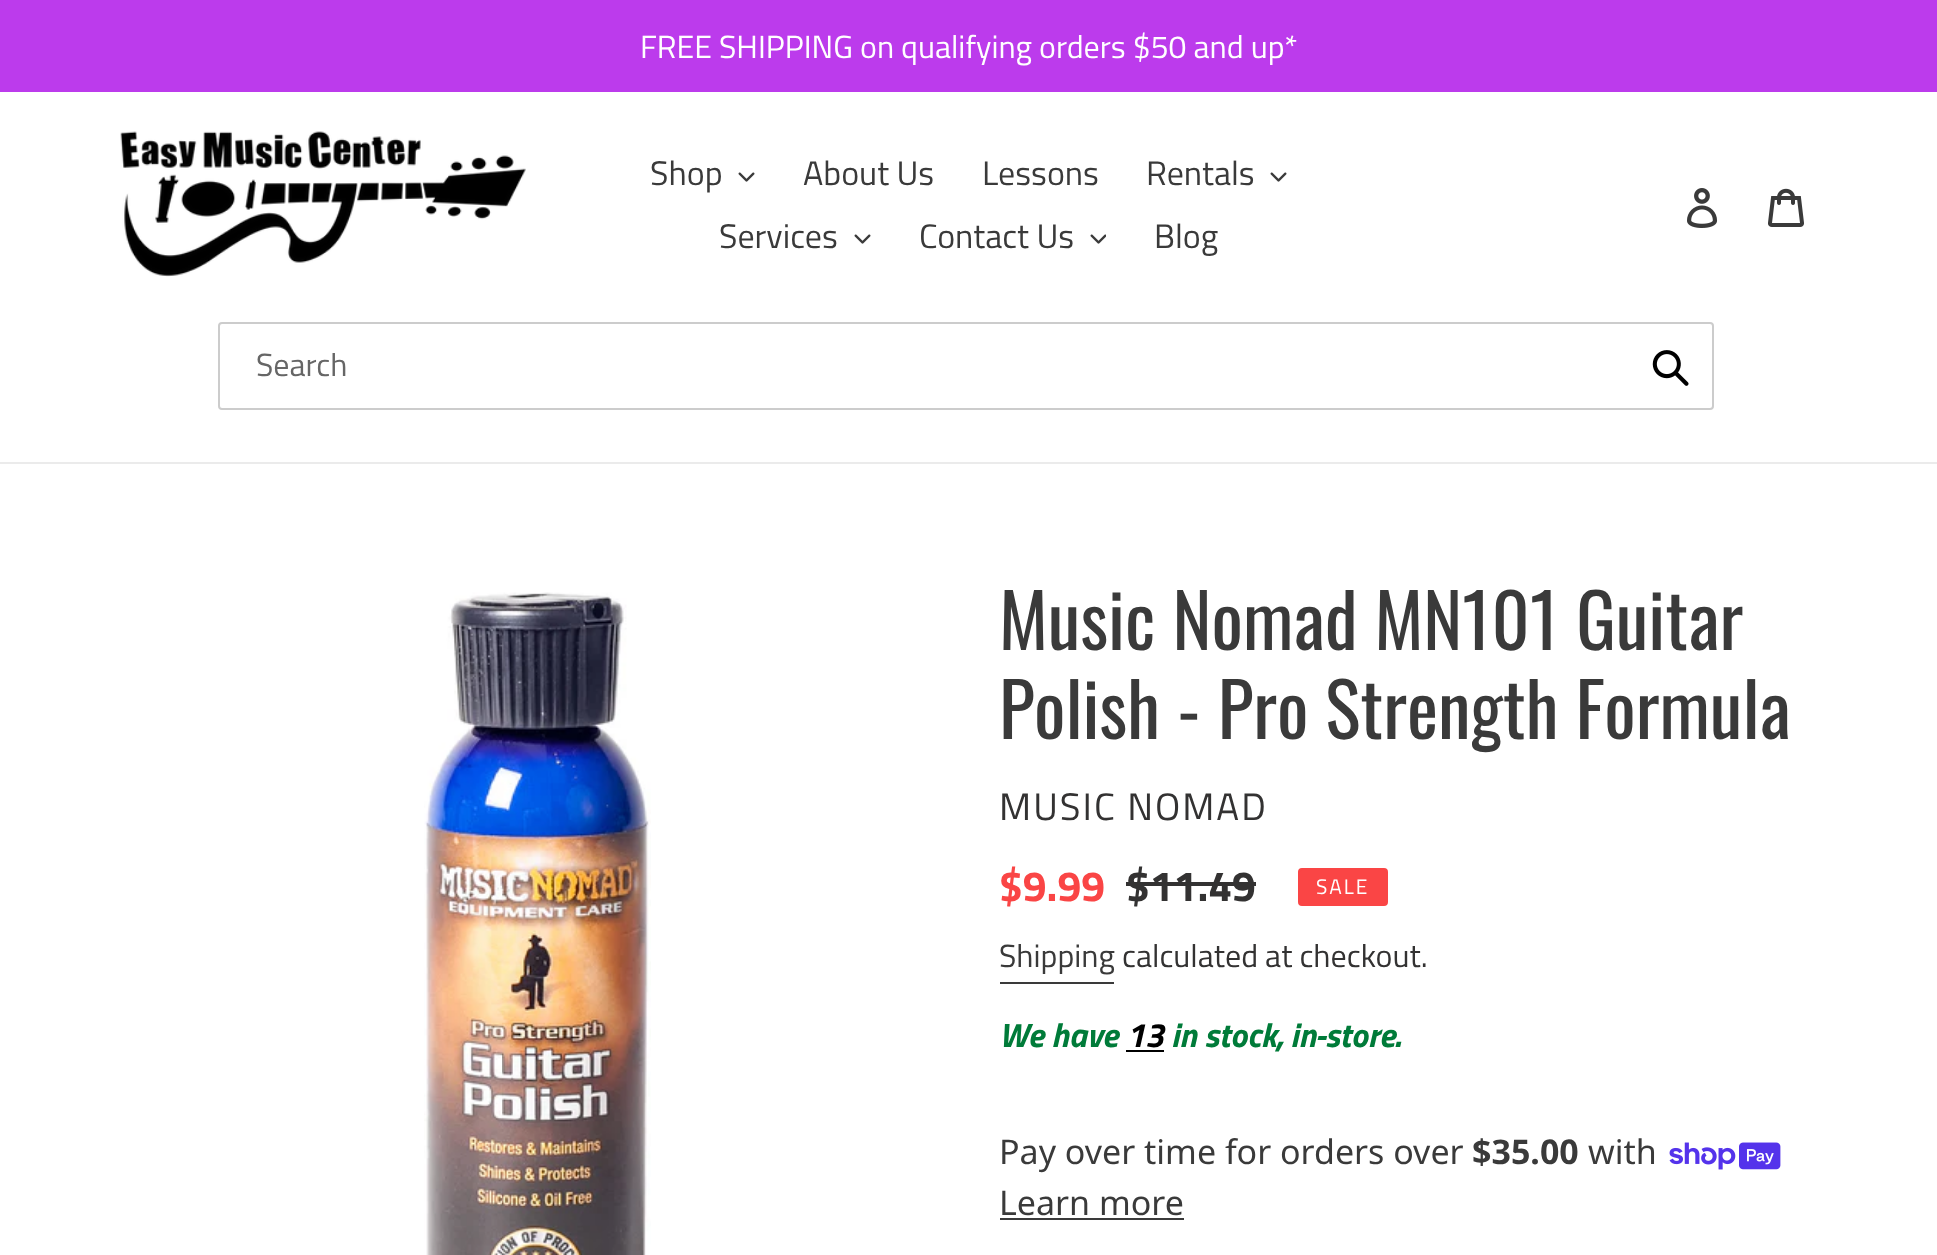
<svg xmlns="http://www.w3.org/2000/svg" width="1937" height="1255">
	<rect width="100%" height="100%" fill="#FFFFFF" />
	<rect x="0" y="0" width="1937" height="92" fill="#BC3BEC" />
	<text x="640" y="58" font-family="Titillium Web" font-size="32" fill="#FFFFFF">FREE SHIPPING on qualifying orders $50 and up*</text>
	<rect x="0" y="462" width="1937" height="2" fill="#EBEBEB" />
	<image x="120" y="131" width="406" height="146" href="assets/img1.png" />
	<text x="650" y="185" font-family="Titillium Web" font-size="34" fill="#3A3A3A">Shop</text>
	<image x="738" y="172" width="17" height="10" href="assets/img2.png" />
	<g font-family="Titillium Web" font-size="34" fill="#3A3A3A">
		<text x="803" y="185">About Us</text>
		<text x="982" y="185">Lessons</text>
		<text x="1146" y="185">Rentals</text>
	</g>
	<image x="1270" y="172" width="17" height="10" href="assets/img2.png" />
	<text x="719" y="248" font-family="Titillium Web" font-size="34" fill="#3A3A3A">Services</text>
	<image x="854" y="234" width="17" height="10" href="assets/img2.png" />
	<text x="919" y="248" font-family="Titillium Web" font-size="34" fill="#3A3A3A">Contact Us</text>
	<image x="1090" y="234" width="16" height="10" href="assets/img3.png" />
	<text x="1154" y="248" font-family="Titillium Web" font-size="34" fill="#3A3A3A">Blog</text>
	<image x="1687" y="188" width="31" height="40" href="assets/img4.png" />
	<image x="1768" y="188" width="36" height="39" href="assets/img5.png" />
	<rect x="219" y="323" width="1494" height="86" rx="3" fill="none" stroke="#CCCCCC" stroke-width="2" />
	<text x="256" y="376" font-family="Titillium Web" font-size="32" fill="#666666">Search</text>
	<image x="1652" y="350" width="37" height="36" href="assets/img6.png" />
	<image x="424" y="592" width="227" height="663" href="assets/img7.png" />
	<g font-family="Oswald" font-size="74" fill="#3A3A3A">
		<text x="999" y="650">Music Nomad MN101 Guitar</text>
		<text x="999" y="739">Polish - Pro Strength Formula</text>
	</g>
	<text x="999" y="820" font-family="Titillium Web" font-size="38.25" letter-spacing="2" fill="#333232">MUSIC NOMAD</text>
	<text x="999" y="901" font-family="Titillium Web" font-size="42.5" font-weight="700" fill="#FA4545">$9.99</text>
	<text x="1126" y="901" font-family="Titillium Web" font-size="42.5" font-weight="700" fill="#333232">$11.49</text>
	<rect x="1126" y="882" width="130" height="4" fill="#333232" />
	<rect x="1299" y="869" width="88" height="36" rx="3" fill="#FA4545" stroke="#FA4545" stroke-width="2" />
	<text x="1316" y="894" font-family="Titillium Web" font-size="21" letter-spacing="2" fill="#FFFFFF">SALE</text>
	<text x="999" y="967" font-family="Titillium Web" font-size="32" fill="#3A3A3A">Shipping</text>
	<rect x="1000" y="982" width="114" height="2" fill="#3A3A3A" />
	<text x="1122" y="967" font-family="Titillium Web" font-size="32" fill="#333232">calculated at checkout.</text>
	<text x="999" y="1047" font-family="Titillium Web" font-size="34" font-weight="700" font-style="italic" fill="#007B39">We have</text>
	<text x="1126" y="1047" font-family="Titillium Web" font-size="34" font-weight="700" font-style="italic" fill="#000000">13</text>
	<rect x="1126" y="1050" width="38" height="2" fill="#000000" />
	<text x="1171" y="1047" font-family="Titillium Web" font-size="34" font-weight="700" font-style="italic" fill="#007B39">in stock, in-store.</text>
	<text x="999" y="1164" font-family="Noto Sans" font-size="34" fill="#3A3A3A">Pay over time for orders over</text>
	<text x="1472" y="1164" font-family="Noto Sans" font-size="34" font-weight="700" fill="#3A3A3A">$35.00</text>
	<text x="1588" y="1164" font-family="Noto Sans" font-size="34" fill="#3A3A3A">with</text>
	<image x="1669" y="1142" width="112" height="28" href="assets/img8.png" />
	<text x="999" y="1215" font-family="Noto Sans" font-size="34" fill="#3A3A3A">Learn more</text>
	<rect x="1000" y="1218" width="184" height="2" fill="#3A3A3A" />
</svg>
